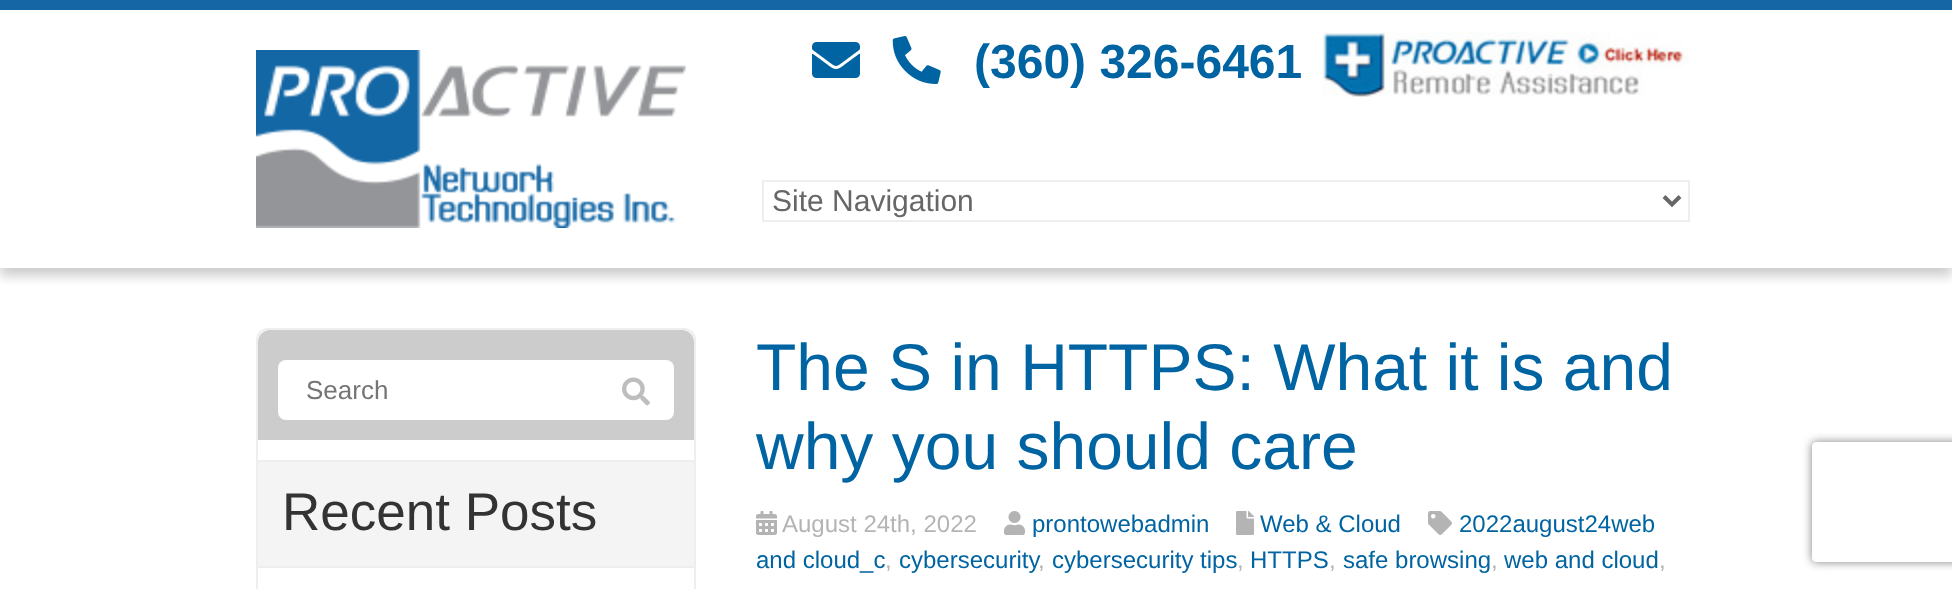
<svg xmlns="http://www.w3.org/2000/svg" width="1952" height="589">
	<defs>
		<clipPath id="clip1"><rect x="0" y="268" width="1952" height="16" /></clipPath>
		<clipPath id="clip2"><path d="M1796 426H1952V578H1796ZM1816 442H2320C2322 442 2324 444 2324 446V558C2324 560 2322 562 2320 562H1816C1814 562 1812 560 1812 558V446C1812 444 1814 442 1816 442Z" clip-rule="evenodd" /></clipPath>
	</defs>
	<rect width="100%" height="100%" fill="#FFFFFF" />
	<g clip-path="url(#clip1)">
		<rect x="0" y="8" width="1952" height="268" fill="#000000" fill-opacity="0.2" filter="blur(6px)" />
	</g>
	<rect x="0" y="0" width="1952" height="10" fill="#1566A5" />
	<image x="256" y="50" width="430" height="178" href="assets/img1.png" />
	<image x="812" y="42" width="48" height="36" href="assets/img2.png" />
	<image x="892" y="36" width="49" height="48" href="assets/img3.png" />
	<text x="974" y="78" font-family="Liberation Sans" font-size="48" font-weight="700" fill="#0064A2">(360) 326-6461</text>
	<image x="1322" y="32" width="367" height="65" href="assets/img4.png" />
	<rect x="763" y="181" width="926" height="40" fill="none" stroke="#EEEEEE" stroke-width="2" />
	<path d="M1664 196.5L1672 204.5L1680 196.5" fill="none" stroke="#676767" stroke-width="4" />
	<text x="772" y="211" font-family="Liberation Sans" font-size="30" fill="#676767">Site Navigation</text>
	<rect x="257" y="329" width="438" height="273" rx="11" fill="none" stroke="#EEEEEE" stroke-width="2" />
	<path d="M270 330H682C688.5 330 694 335.5 694 342V440H258V342C258 335.5 263.5 330 270 330Z" fill="#CCCCCC" />
	<rect x="278" y="360" width="396" height="60" rx="8" fill="#FFFFFF" />
	<text x="306" y="399" font-family="Liberation Sans" font-size="26" fill="#757575">Search</text>
	<image x="622" y="377" width="28" height="29" href="assets/img5.png" />
	<rect x="258" y="462" width="436" height="104" fill="#F4F4F4" />
	<rect x="258" y="460" width="436" height="2" fill="#EEEEEE" />
	<rect x="258" y="566" width="436" height="2" fill="#EEEEEE" />
	<text x="282" y="530" font-family="Liberation Sans" font-size="53" fill="#333333">Recent Posts</text>
	<g font-family="Liberation Sans" font-size="66" fill="#0064A2">
		<text x="756" y="390">The S in HTTPS: What it is and</text>
		<text x="756" y="469">why you should care</text>
	</g>
	<image x="1428" y="511" width="24" height="24" href="assets/img6.png" />
	<g font-family="Liberation Sans" font-size="24" fill="#0064A2">
		<text x="1459" y="532">2022august24web</text>
		<text x="756" y="568">and cloud_c</text>
	</g>
	<text x="885" y="568" font-family="Liberation Sans" font-size="24" fill="#B4B4B4">,</text>
	<text x="899" y="568" font-family="Liberation Sans" font-size="24" fill="#0064A2">cybersecurity</text>
	<text x="1038" y="568" font-family="Liberation Sans" font-size="24" fill="#B4B4B4">,</text>
	<text x="1052" y="568" font-family="Liberation Sans" font-size="24" fill="#0064A2">cybersecurity tips</text>
	<text x="1237" y="568" font-family="Liberation Sans" font-size="24" fill="#B4B4B4">,</text>
	<text x="1250" y="568" font-family="Liberation Sans" font-size="24" fill="#0064A2">HTTPS</text>
	<text x="1329" y="568" font-family="Liberation Sans" font-size="24" fill="#B4B4B4">,</text>
	<text x="1343" y="568" font-family="Liberation Sans" font-size="24" fill="#0064A2">safe browsing</text>
	<text x="1491" y="568" font-family="Liberation Sans" font-size="24" fill="#B4B4B4">,</text>
	<text x="1504" y="568" font-family="Liberation Sans" font-size="24" fill="#0064A2">web and cloud</text>
	<text x="1659" y="568" font-family="Liberation Sans" font-size="24" fill="#B4B4B4">,</text>
	<image x="756" y="511" width="21" height="24" href="assets/img7.png" />
	<text x="782" y="532" font-family="Liberation Sans" font-size="24" fill="#B4B4B4">August 24th, 2022</text>
	<image x="1004" y="511" width="21" height="24" href="assets/img8.png" />
	<text x="1032" y="532" font-family="Liberation Sans" font-size="24" fill="#0064A2">prontowebadmin</text>
	<image x="1236" y="511" width="18" height="24" href="assets/img9.png" />
	<text x="1260" y="532" font-family="Liberation Sans" font-size="24" fill="#0064A2">Web &amp; Cloud</text>
	<g clip-path="url(#clip2)">
		<rect x="1812" y="442" width="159" height="120" rx="4" fill="#808080" filter="blur(5px)" />
	</g>
</svg>
